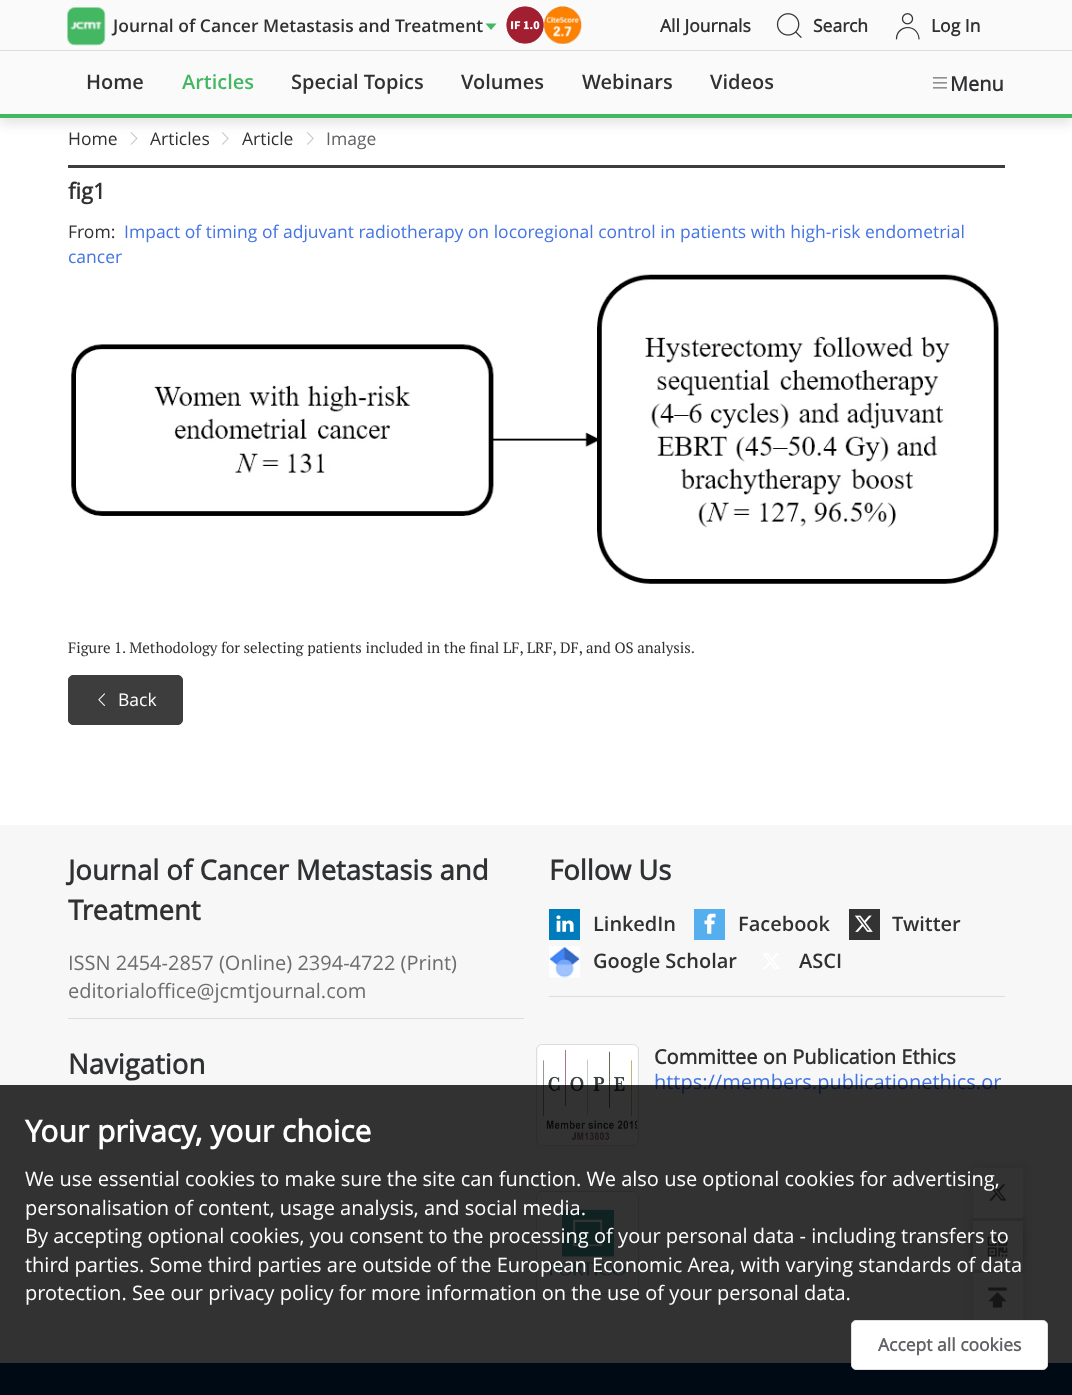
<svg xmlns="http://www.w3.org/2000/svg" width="1072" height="1395">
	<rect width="100%" height="100%" fill="#FFFFFF" />
	<rect x="0" y="58" width="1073" height="66" fill="#000000" fill-opacity="0.1" filter="blur(6px)" />
	<rect x="0" y="0" width="1072" height="50" fill="#FAFAFA" />
	<rect x="0" y="50" width="1072" height="1" fill="#DDDDDD" />
	<image x="67" y="7" width="39" height="39" href="assets/img1.png" />
	<text x="113" y="32" font-family="Open Sans" font-size="17.5" font-weight="600" fill="#303133">Journal of Cancer Metastasis and Treatment</text>
	<path d="M496.5 23.5H485.5L491 30Z" fill="#44B762" />
	<image x="506" y="6" width="38" height="38" href="assets/img2.png" />
	<image x="543" y="6" width="39" height="38" href="assets/img3.png" />
	<text x="660" y="32" font-family="Open Sans" font-size="17.5" font-weight="700" fill="#303133">All Journals</text>
	<image x="776" y="13" width="26" height="25" href="assets/img4.png" />
	<text x="813" y="32" font-family="Open Sans" font-size="17.5" font-weight="700" fill="#303133">Search</text>
	<image x="895" y="13" width="25" height="27" href="assets/img5.png" />
	<text x="931" y="32" font-family="Open Sans" font-size="17.5" font-weight="700" fill="#303133">Log In</text>
	<rect x="0" y="51" width="1072" height="63" fill="#FAFAFA" />
	<rect x="0" y="114" width="1072" height="4" fill="#44B762" />
	<text x="86" y="89" font-family="Open Sans" font-size="20" font-weight="600" fill="#303133">Home</text>
	<text x="182" y="89" font-family="Open Sans" font-size="20" font-weight="600" fill="#44B762">Articles</text>
	<g font-family="Open Sans" font-size="20" font-weight="600" fill="#303133">
		<text x="291" y="89">Special Topics</text>
		<text x="461" y="89">Volumes</text>
		<text x="582" y="89">Webinars</text>
		<text x="710" y="89">Videos</text>
	</g>
	<image x="932" y="77" width="15" height="12" href="assets/img6.png" />
	<text x="950" y="91" font-family="Open Sans" font-size="20" font-weight="700" fill="#303133">Menu</text>
	<text x="68" y="145" font-family="Open Sans" font-size="17.5" fill="#303133">Home</text>
	<image x="130" y="132" width="8" height="13" href="assets/img7.png" />
	<text x="150" y="145" font-family="Open Sans" font-size="17.5" fill="#303133">Articles</text>
	<image x="222" y="132" width="7" height="13" href="assets/img8.png" />
	<text x="242" y="145" font-family="Open Sans" font-size="17.5" fill="#303133">Article</text>
	<image x="307" y="132" width="7" height="13" href="assets/img8.png" />
	<text x="326" y="145" font-family="Open Sans" font-size="17.5" fill="#606266">Image</text>
	<rect x="68" y="165" width="937" height="3" fill="#3D3D3D" />
	<text x="68" y="199" font-family="Open Sans" font-size="22" font-weight="700" fill="#303133">fig1</text>
	<text x="68" y="238" font-family="Open Sans" font-size="17.5" fill="#303133">From:</text>
	<g font-family="Open Sans" font-size="17.5" fill="#4475E1">
		<text x="124" y="238">Impact of timing of adjuvant radiotherapy on locoregional control in patients with high-risk endometrial</text>
		<text x="68" y="263">cancer</text>
	</g>
	<image x="71" y="274" width="928" height="310" href="assets/img9.png" />
	<text x="68" y="653" font-family="PT Serif" font-size="15" fill="#303133">Figure 1. Methodology for selecting patients included in the final LF, LRF, DF, and OS analysis.</text>
	<rect x="68.5" y="675.5" width="114" height="49" rx="4.5" fill="#3D3D3D" stroke="#3D3D3D" />
	<image x="98" y="693" width="7" height="13" href="assets/img10.png" />
	<text x="118" y="706" font-family="Open Sans" font-size="17.5" fill="#FFFFFF">Back</text>
	<rect x="0" y="825" width="1072" height="538" fill="#F7F7F7" />
	<rect x="68" y="1018" width="456" height="1" fill="#DDDDDD" />
	<g font-family="Open Sans" font-size="27.5" font-weight="700" fill="#303133">
		<text x="68" y="880">Journal of Cancer Metastasis and</text>
		<text x="68" y="920">Treatment</text>
	</g>
	<g font-family="Open Sans" font-size="20" fill="#6D6D6D">
		<text x="68" y="970">ISSN 2454-2857 (Online) 2394-4722 (Print)</text>
		<text x="68" y="998">editorialoffice@jcmtjournal.com</text>
	</g>
	<rect x="549" y="996" width="456" height="1" fill="#DDDDDD" />
	<text x="549" y="880" font-family="Open Sans" font-size="27.5" font-weight="700" fill="#303133">Follow Us</text>
	<rect x="549" y="909" width="31" height="31" fill="#007BBB" />
	<image x="556" y="915" width="18" height="17" href="assets/img11.png" />
	<text x="593" y="931" font-family="Open Sans" font-size="20" font-weight="600" fill="#303133">LinkedIn</text>
	<rect x="694" y="909" width="31" height="31" fill="#55AEEE" />
	<image x="704" y="913" width="12" height="21" href="assets/img12.png" />
	<text x="738" y="931" font-family="Open Sans" font-size="20" font-weight="600" fill="#303133">Facebook</text>
	<rect x="849" y="909" width="31" height="31" fill="#333333" />
	<image x="854" y="915" width="19" height="17" href="assets/img13.png" />
	<text x="892" y="931" font-family="Open Sans" font-size="20" font-weight="600" fill="#303133">Twitter</text>
	<image x="549" y="946" width="31" height="32" href="assets/img14.png" />
	<text x="593" y="968" font-family="Open Sans" font-size="20" font-weight="600" fill="#303133">Google Scholar</text>
	<image x="763" y="953" width="17" height="16" href="assets/img15.png" />
	<text x="799" y="968" font-family="Open Sans" font-size="20" font-weight="600" fill="#303133">ASCI</text>
	<text x="68" y="1074" font-family="Open Sans" font-size="27.5" font-weight="700" fill="#303133">Navigation</text>
	<rect x="536.5" y="1044.5" width="102" height="101" rx="5.5" fill="none" stroke="#DDDDDD" />
	<image x="538" y="1045" width="100" height="100" href="assets/img16.png" />
	<text x="654" y="1064" font-family="Open Sans" font-size="20" font-weight="700" fill="#303133">Committee on Publication Ethics</text>
	<text x="654" y="1089" font-family="Open Sans" font-size="20" fill="#4475E1">https://members.publicationethics.or</text>
	<rect x="536.5" y="1191.5" width="102" height="102" rx="5.5" fill="#FFFFFF" stroke="#DDDDDD" />
	<image x="549" y="1209" width="78" height="67" href="assets/img17.png" />
	<rect x="0" y="1363" width="1072" height="32" fill="#003366" />
	<rect x="973" y="1220" width="50" height="50" fill="#000000" fill-opacity="0.12" filter="blur(4px)" />
	<rect x="973" y="1220" width="50" height="50" rx="25" fill="#000000" fill-opacity="0.12" filter="blur(4px)" />
	<rect x="973" y="1168" width="50" height="155" fill="#000000" fill-opacity="0.12" filter="blur(4px)" />
	<rect x="973" y="1168" width="50" height="152" fill="#FFFFFF" />
	<rect x="973" y="1218" width="50" height="3" fill="#DDDDDD" />
	<image x="988" y="1184" width="19" height="17" href="assets/img18.png" />
	<rect x="973" y="1270" width="50" height="3" fill="#DDDDDD" />
	<image x="987" y="1236" width="21" height="21" href="assets/img19.png" />
	<image x="988" y="1287" width="19" height="21" href="assets/img20.png" />
	<rect x="0" y="1085" width="1072" height="310" fill="#000000" fill-opacity="0.8" />
	<text x="25" y="1142" font-family="Open Sans" font-size="30" font-weight="700" fill="#FFFFFF">Your privacy, your choice</text>
	<g font-family="Open Sans" font-size="20" fill="#FFFFFF">
		<text x="25" y="1186">We use essential cookies to make sure the site can function. We also use optional cookies for advertising,</text>
		<text x="25" y="1215">personalisation of content, usage analysis, and social media.</text>
		<text x="25" y="1243">By accepting optional cookies, you consent to the processing of your personal data - including transfers to</text>
		<text x="25" y="1272">third parties. Some third parties are outside of the European Economic Area, with varying standards of data</text>
		<text x="25" y="1300">protection. See our privacy policy for more information on the use of your personal data.</text>
	</g>
	<rect x="851.5" y="1320.5" width="196" height="49" rx="4.5" fill="#FFFFFF" stroke="#DCDFE6" />
	<text x="878" y="1351" font-family="Open Sans" font-size="17.5" font-weight="700" fill="#606266">Accept all cookies</text>
</svg>
